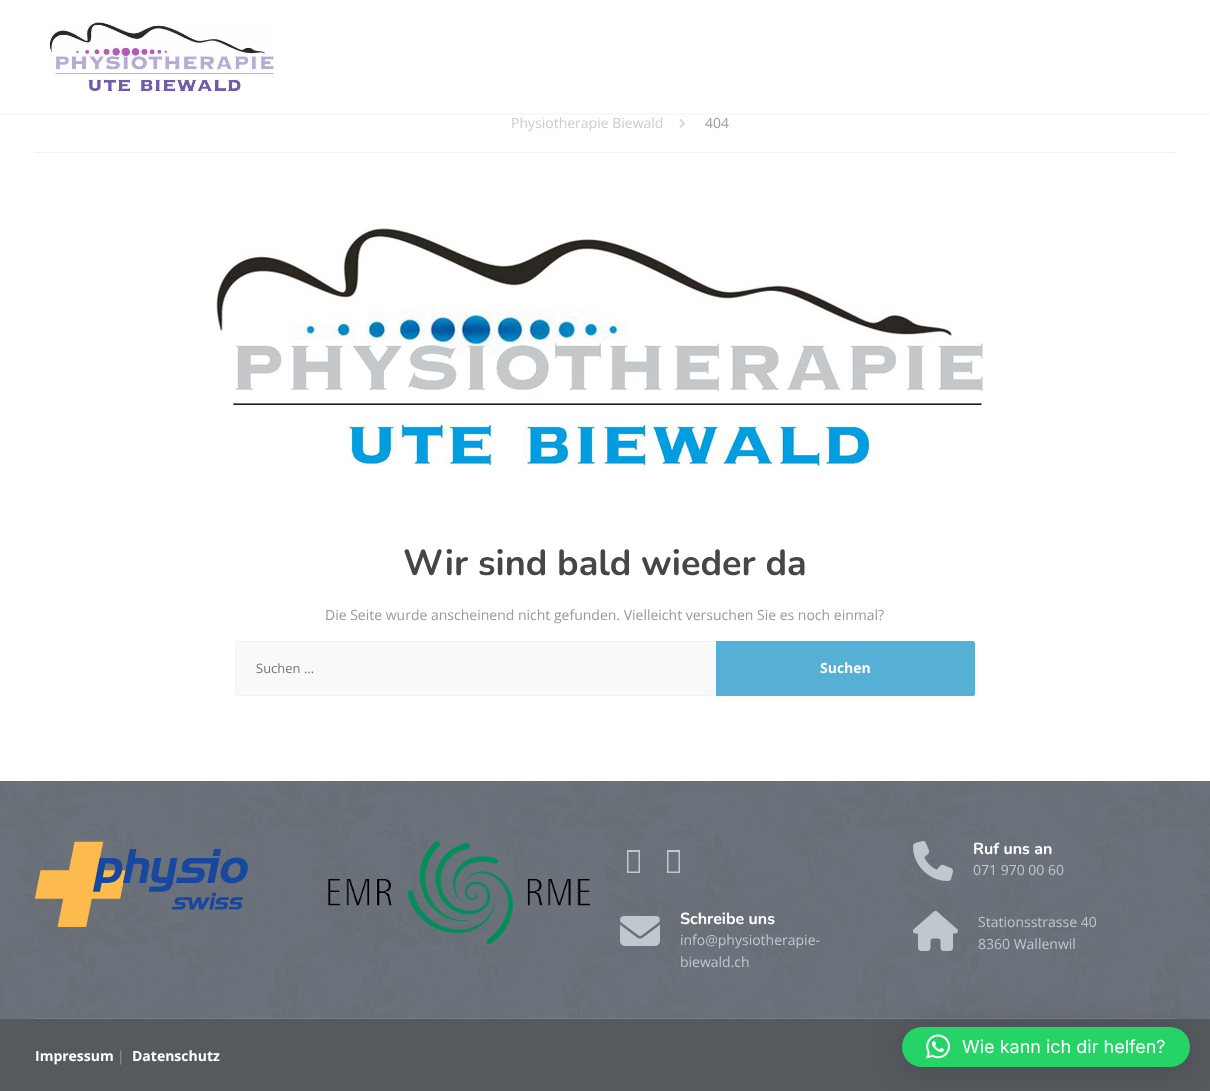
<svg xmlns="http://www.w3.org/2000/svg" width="1210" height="1091">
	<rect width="100%" height="100%" fill="#FFFFFF" />
	<image x="679" y="119" width="6" height="9" href="assets/img2.png" />
	<rect x="0" y="1" width="1210" height="113" fill="#323232" fill-opacity="0.07" filter="blur(1.5px)" />
	<rect x="0" y="0" width="1210" height="113" fill="#FFFFFF" />
	<image x="49" y="22" width="225" height="70" href="assets/img1.png" />
	<rect x="35" y="152" width="1140" height="1" fill="#F0F0F0" />
	<text x="511" y="128" font-family="Open Sans" font-size="14" fill="#CCCCCC">Physiotherapie Biewald</text>
	<text x="705" y="128" font-family="Open Sans" font-size="14" fill="#999999">404</text>
	<image x="216" y="227" width="768" height="242" href="assets/img3.png" />
	<text x="403" y="575" font-family="Nunito" font-size="36" font-weight="700" fill="#464646">Wir sind bald wieder da</text>
	<text x="325" y="620" font-family="Open Sans" font-size="14" fill="#999999">Die Seite wurde anscheinend nicht gefunden. Vielleicht versuchen Sie es noch einmal?</text>
	<path d="M237 642H714C715 642 716 642 716 643V694C716 695 715 695 714 695H237C236 695 236 695 236 694V643C236 642 236 642 237 642Z" fill="#F9F9F9" />
	<rect x="236" y="641" width="479" height="1" fill="#F2F2F2" />
	<rect x="236" y="695" width="479" height="1" fill="#F2F2F2" />
	<rect x="235" y="642" width="1" height="53" fill="#F2F2F2" />
	<text x="256" y="673" font-family="Open Sans" font-size="13" fill="#757575">Suchen …</text>
	<path d="M716 641H973C974 641 975 642 975 643V694C975 695 974 696 973 696H716Z" fill="#56AFD5" />
	<text x="820" y="673" font-family="Open Sans" font-size="14" font-weight="700" fill="#FFFFFF">Suchen</text>
	<image x="0" y="781" width="1210" height="238" href="assets/img4.png" />
	<rect x="35" y="1018" width="1140" height="1" fill="#FFFFFF" fill-opacity="0.1" />
	<image x="35" y="841" width="213" height="86" href="assets/img5.png" />
	<image x="328" y="841" width="262" height="103" href="assets/img6.png" />
	<path d="M627 873V850H640V873ZM628.5 871.5H638.5V852H628.5ZM667 873V850H680V873ZM668.5 871.5H678.5V852H668.5Z" fill="#C1C7CE" />
	<image x="913" y="841" width="40" height="40" href="assets/img7.png" />
	<text x="973" y="854" font-family="Nunito" font-size="16" font-weight="700" fill="#FFFFFF">Ruf uns an</text>
	<text x="973" y="875" font-family="Open Sans" font-size="14" fill="#C1C7CE">071 970 00 60</text>
	<image x="620" y="916" width="40" height="30" href="assets/img8.png" />
	<text x="680" y="924" font-family="Nunito" font-size="16" font-weight="700" fill="#FFFFFF">Schreibe uns</text>
	<g font-family="Open Sans" font-size="14" fill="#C1C7CE">
		<text x="680" y="945">info@physiotherapie-</text>
		<text x="680" y="967">biewald.ch</text>
	</g>
	<image x="913" y="911" width="45" height="40" href="assets/img9.png" />
	<g font-family="Open Sans" font-size="14" fill="#C1C7CE">
		<text x="978" y="927">Stationsstrasse 40</text>
		<text x="978" y="949">8360 Wallenwil</text>
	</g>
	<rect x="0" y="1019" width="1210" height="72" fill="#555A5F" />
	<text x="35" y="1061" font-family="Open Sans" font-size="14" font-weight="700" fill="#FFFFFF">Impressum</text>
	<text x="117" y="1061" font-family="Open Sans" font-size="14" fill="#909BA2">|</text>
	<text x="132" y="1061" font-family="Open Sans" font-size="14" font-weight="700" fill="#FFFFFF">Datenschutz</text>
	<rect x="902" y="1029" width="288" height="40" rx="20" fill="#000000" fill-opacity="0.16" filter="blur(16px)" />
	<rect x="902" y="1027" width="288" height="40" rx="20" fill="#25D366" />
	<image x="926" y="1034" width="24" height="25" href="assets/img10.png" />
	<text x="962" y="1053" font-family="Inter" font-size="18" fill="#FFFFFF">Wie kann ich dir helfen?</text>
</svg>
